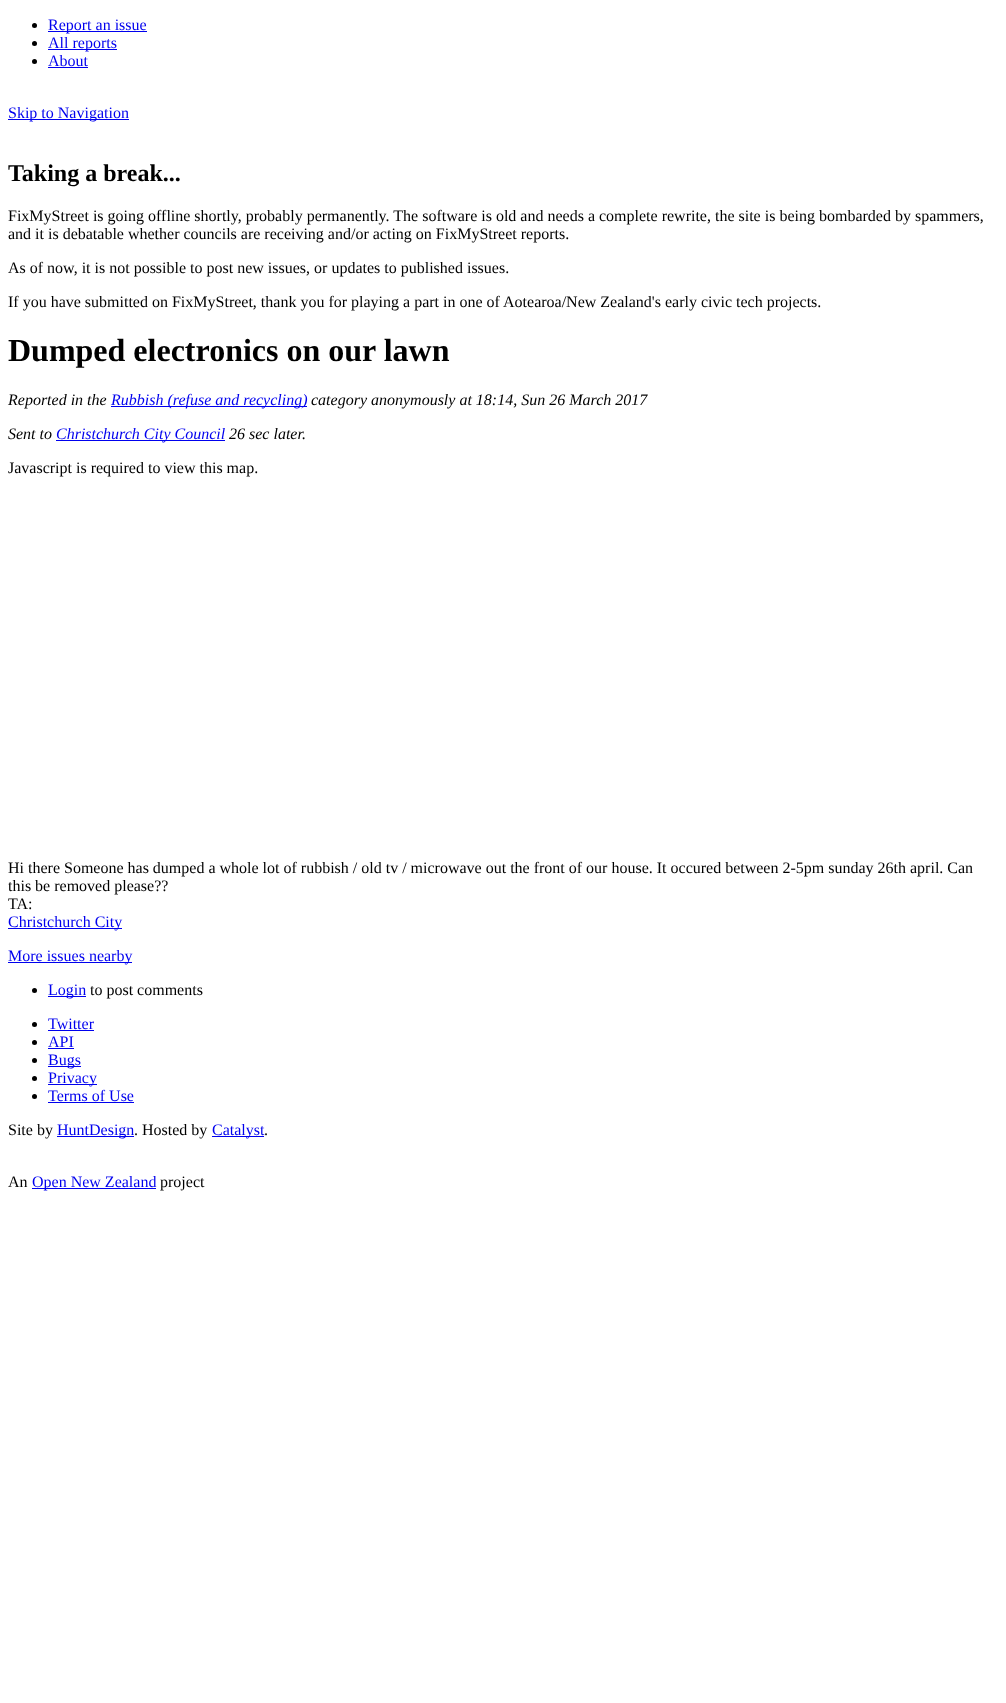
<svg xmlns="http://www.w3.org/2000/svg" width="1006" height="1703">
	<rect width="100%" height="100%" fill="#FFFFFF" />
	<circle cx="34.5" cy="25.5" r="2.5" fill="#000000" />
	<rect x="48" y="31" width="99" height="1" fill="#0000EE" />
	<text x="48" y="30" font-family="Liberation Serif" font-size="16" fill="#0000EE">Report an issue</text>
	<circle cx="34.5" cy="43.5" r="2.5" fill="#000000" />
	<rect x="48" y="49" width="69" height="1" fill="#0000EE" />
	<text x="48" y="48" font-family="Liberation Serif" font-size="16" fill="#0000EE">All reports</text>
	<circle cx="34.5" cy="61.5" r="2.5" fill="#000000" />
	<text x="48" y="66" font-family="Liberation Serif" font-size="16" fill="#0000EE">About</text>
	<rect x="48" y="67" width="40" height="1" fill="#0000EE" />
	<rect x="8" y="119" width="121" height="1" fill="#0000EE" />
	<text x="8" y="118" font-family="Liberation Serif" font-size="16" fill="#0000EE">Skip to Navigation</text>
	<text x="8" y="181" font-family="Liberation Serif" font-size="24" font-weight="700" fill="#000000">Taking a break...</text>
	<g font-family="Liberation Serif" font-size="16" fill="#000000">
		<text x="8" y="221">FixMyStreet is going offline shortly, probably permanently. The software is old and needs a complete rewrite, the site is being bombarded by spammers,</text>
		<text x="8" y="239">and it is debatable whether councils are receiving and/or acting on FixMyStreet reports.</text>
		<text x="8" y="273">As of now, it is not possible to post new issues, or updates to published issues.</text>
		<text x="8" y="307">If you have submitted on FixMyStreet, thank you for playing a part in one of Aotearoa/New Zealand's early civic tech projects.</text>
	</g>
	<text x="8" y="361" font-family="Liberation Serif" font-size="32" font-weight="700" fill="#000000">Dumped electronics on our lawn</text>
	<text x="8" y="405" font-family="Liberation Serif" font-size="16" font-style="italic" fill="#000000">Reported in the</text>
	<rect x="111" y="406" width="196" height="1" fill="#0000EE" />
	<text x="111" y="405" font-family="Liberation Serif" font-size="16" font-style="italic" fill="#0000EE">Rubbish (refuse and recycling)</text>
	<g font-family="Liberation Serif" font-size="16" font-style="italic" fill="#000000">
		<text x="311" y="405">category anonymously at 18:14, Sun 26 March 2017</text>
		<text x="8" y="439">Sent to</text>
	</g>
	<rect x="56" y="440" width="169" height="1" fill="#0000EE" />
	<text x="56" y="439" font-family="Liberation Serif" font-size="16" font-style="italic" fill="#0000EE">Christchurch City Council</text>
	<text x="229" y="439" font-family="Liberation Serif" font-size="16" font-style="italic" fill="#000000">26 sec later.</text>
	<g font-family="Liberation Serif" font-size="16" fill="#000000">
		<text x="8" y="473">Javascript is required to view this map.</text>
		<text x="8" y="873">Hi there Someone has dumped a whole lot of rubbish / old tv / microwave out the front of our house. It occured between 2-5pm sunday 26th april. Can</text>
		<text x="8" y="891">this be removed please??</text>
		<text x="8" y="909">TA:</text>
	</g>
	<rect x="8" y="928" width="114" height="1" fill="#0000EE" />
	<text x="8" y="927" font-family="Liberation Serif" font-size="16" fill="#0000EE">Christchurch City</text>
	<rect x="8" y="962" width="124" height="1" fill="#0000EE" />
	<text x="8" y="961" font-family="Liberation Serif" font-size="16" fill="#0000EE">More issues nearby</text>
	<circle cx="34.5" cy="990.5" r="2.5" fill="#000000" />
	<rect x="48" y="996" width="38" height="1" fill="#0000EE" />
	<text x="48" y="995" font-family="Liberation Serif" font-size="16" fill="#0000EE">Login</text>
	<text x="90" y="995" font-family="Liberation Serif" font-size="16" fill="#000000">to post comments</text>
	<circle cx="34.5" cy="1024.5" r="2.5" fill="#000000" />
	<text x="48" y="1029" font-family="Liberation Serif" font-size="16" fill="#0000EE">Twitter</text>
	<rect x="48" y="1030" width="46" height="1" fill="#0000EE" />
	<circle cx="34.5" cy="1042.5" r="2.5" fill="#000000" />
	<text x="48" y="1047" font-family="Liberation Serif" font-size="16" fill="#0000EE">API</text>
	<rect x="48" y="1048" width="26" height="1" fill="#0000EE" />
	<circle cx="34.5" cy="1060.5" r="2.5" fill="#000000" />
	<rect x="48" y="1066" width="33" height="1" fill="#0000EE" />
	<text x="48" y="1065" font-family="Liberation Serif" font-size="16" fill="#0000EE">Bugs</text>
	<circle cx="34.5" cy="1078.5" r="2.5" fill="#000000" />
	<rect x="48" y="1084" width="49" height="1" fill="#0000EE" />
	<text x="48" y="1083" font-family="Liberation Serif" font-size="16" fill="#0000EE">Privacy</text>
	<circle cx="34.5" cy="1096.5" r="2.5" fill="#000000" />
	<text x="48" y="1101" font-family="Liberation Serif" font-size="16" fill="#0000EE">Terms of Use</text>
	<rect x="48" y="1102" width="86" height="1" fill="#0000EE" />
	<text x="8" y="1135" font-family="Liberation Serif" font-size="16" fill="#000000">Site by</text>
	<rect x="57" y="1136" width="77" height="1" fill="#0000EE" />
	<text x="57" y="1135" font-family="Liberation Serif" font-size="16" fill="#0000EE">HuntDesign</text>
	<text x="134" y="1135" font-family="Liberation Serif" font-size="16" fill="#000000">. Hosted by</text>
	<rect x="212" y="1136" width="52" height="1" fill="#0000EE" />
	<text x="212" y="1135" font-family="Liberation Serif" font-size="16" fill="#0000EE">Catalyst</text>
	<g font-family="Liberation Serif" font-size="16" fill="#000000">
		<text x="264" y="1135">.</text>
		<text x="8" y="1187">An</text>
	</g>
	<rect x="32" y="1188" width="124" height="1" fill="#0000EE" />
	<text x="32" y="1187" font-family="Liberation Serif" font-size="16" fill="#0000EE">Open New Zealand</text>
	<text x="160" y="1187" font-family="Liberation Serif" font-size="16" fill="#000000">project</text>
</svg>
